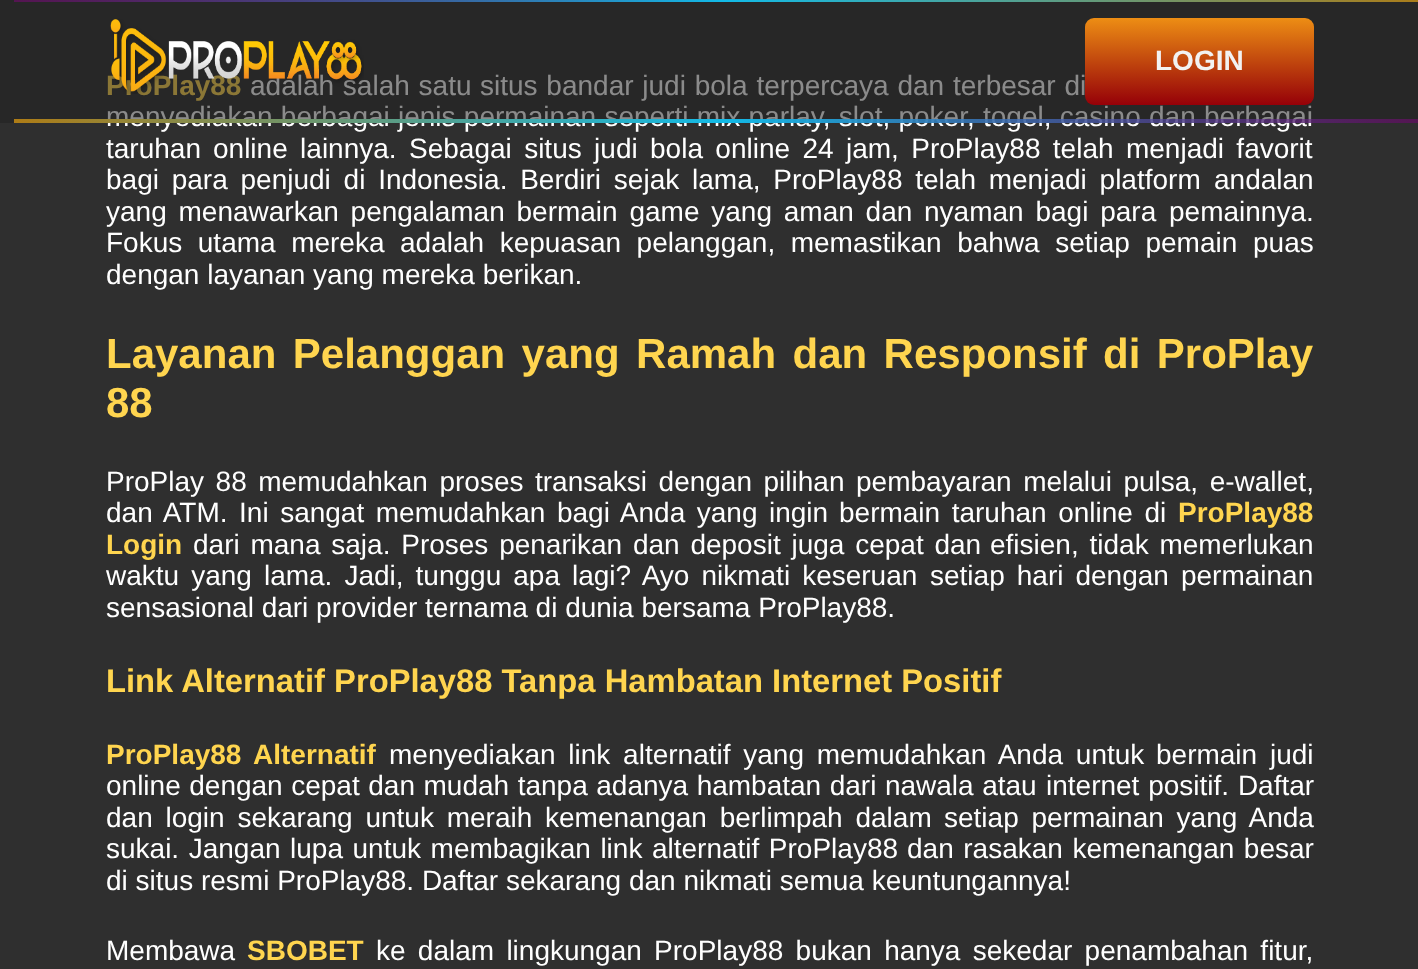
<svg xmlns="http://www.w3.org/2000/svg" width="1418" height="969">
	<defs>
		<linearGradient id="g1" gradientUnits="userSpaceOnUse" x1="14" y1="0.9" x2="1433" y2="0.9"><stop offset="0" stop-color="#7D0476" stop-opacity="0.53" /><stop offset="0.5" stop-color="#12BAE7" /><stop offset="1" stop-color="#AE7C16" /></linearGradient>
		<linearGradient id="g2" gradientUnits="userSpaceOnUse" x1="1200" y1="17" x2="1200" y2="105"><stop offset="0" stop-color="#EE8F14" /><stop offset="1" stop-color="#950008" /></linearGradient>
		<linearGradient id="g3" gradientUnits="userSpaceOnUse" x1="14" y1="121" x2="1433" y2="121"><stop offset="0" stop-color="#AE7C16" /><stop offset="0.5" stop-color="#12BAE7" /><stop offset="1" stop-color="#7D0476" stop-opacity="0.53" /></linearGradient>
	</defs>
	<rect width="100%" height="100%" fill="#2F2F2F" />
	<text x="106" y="95" font-family="Liberation Sans" font-size="28" font-weight="700" fill="#FFD54F">ProPlay88</text>
	<g font-family="Liberation Sans" font-size="28" fill="#FFFFFF">
		<text x="250" y="95" word-spacing="1">adalah salah satu</text>
		<text x="480" y="95" word-spacing="1">situs bandar judi bola terpercaya dan terbesar di</text>
		<text x="106" y="126" word-spacing="0.5">menyediakan berbagai</text>
		<text x="398" y="126" word-spacing="0.5">jenis permainan seperti mix parlay, slot, poker, togel, casino dan berbagai</text>
	</g>
	<rect x="0" y="0" width="1418" height="123" fill="#212121" fill-opacity="0.52" />
	<rect x="14" y="0" width="1404" height="2" fill="url(#g1)" />
	<image x="110" y="19" width="254" height="75" href="assets/img1.png" />
	<rect x="1085" y="18" width="229" height="87" rx="9" fill="url(#g2)" />
	<text x="1155" y="70" font-family="Liberation Sans" font-size="28" font-weight="700" fill="#F2F2F2">LOGIN</text>
	<rect x="14" y="119" width="1404" height="4" fill="url(#g3)" />
	<g font-family="Liberation Sans" font-size="28" fill="#FFFFFF">
		<text x="106" y="158">taruhan</text>
		<text x="213" y="158" word-spacing="4.6">online lainnya. Sebagai situs judi bola online 24 jam, ProPlay88 telah menjadi favorit</text>
		<text x="106" y="189" word-spacing="5">bagi para penjudi di Indonesia. Berdiri sejak lama, ProPlay88 telah menjadi platform</text>
		<text x="1214" y="189">andalan</text>
		<text x="106" y="221" word-spacing="4">yang menawarkan pengalaman bermain game yang aman dan nyaman bagi para</text>
		<text x="1169" y="221">pemainnya.</text>
		<text x="106" y="252" word-spacing="7.75">Fokus utama mereka adalah kepuasan pelanggan, memastikan bahwa setiap pemain</text>
		<text x="1253" y="252">puas</text>
		<text x="106" y="284">dengan layanan yang mereka berikan.</text>
	</g>
	<g font-family="Liberation Sans" font-size="42" font-weight="700" fill="#FFD54F">
		<text x="106" y="368" word-spacing="4.75">Layanan Pelanggan yang Ramah dan Responsif di ProPlay</text>
		<text x="106" y="417">88</text>
	</g>
	<g font-family="Liberation Sans" font-size="28" fill="#FFFFFF">
		<text x="106" y="491" word-spacing="3.75">ProPlay 88 memudahkan proses transaksi dengan pilihan</text>
		<text x="856" y="491" word-spacing="3.75">pembayaran melalui pulsa, e-wallet,</text>
		<text x="106" y="522" word-spacing="3.75">dan ATM. Ini sangat memudahkan bagi Anda yang ingin</text>
		<text x="839" y="522" word-spacing="3.75">bermain taruhan online di</text>
	</g>
	<g font-family="Liberation Sans" font-size="28" font-weight="700" fill="#FFD54F">
		<text x="1178" y="522">ProPlay88</text>
		<text x="106" y="554">Login</text>
	</g>
	<g font-family="Liberation Sans" font-size="28" fill="#FFFFFF">
		<text x="193" y="554" word-spacing="3">dari mana saja. Proses penarikan dan deposit juga cepat dan</text>
		<text x="990" y="554" word-spacing="3">efisien, tidak memerlukan</text>
		<text x="106" y="585" word-spacing="4.25">waktu yang lama. Jadi, tunggu apa lagi? Ayo nikmati keseruan</text>
		<text x="930" y="585" word-spacing="4.25">setiap hari dengan permainan</text>
		<text x="106" y="617">sensasional dari provider ternama di dunia bersama ProPlay88.</text>
	</g>
	<text x="106" y="692" font-family="Liberation Sans" font-size="32.75" font-weight="700" fill="#FFD54F">Link Alternatif ProPlay88 Tanpa Hambatan Internet Positif</text>
	<g font-family="Liberation Sans" font-size="28" font-weight="700" fill="#FFD54F">
		<text x="106" y="764">ProPlay88</text>
		<text x="253" y="764">Alternatif</text>
	</g>
	<g font-family="Liberation Sans" font-size="28" fill="#FFFFFF">
		<text x="389" y="764" word-spacing="5">menyediakan link alternatif yang memudahkan Anda untuk</text>
		<text x="1156" y="764" word-spacing="5">bermain judi</text>
		<text x="106" y="795" word-spacing="0.75">online dengan cepat dan mudah tanpa adanya hambatan dari nawala atau</text>
		<text x="1046" y="795" word-spacing="1">internet positif. Daftar</text>
		<text x="106" y="827" word-spacing="5">dan login sekarang untuk meraih kemenangan berlimpah dalam</text>
		<text x="944" y="827" word-spacing="5">setiap permainan yang Anda</text>
		<text x="106" y="858" word-spacing="1.75">sukai. Jangan lupa untuk membagikan link alternatif ProPlay88</text>
		<text x="907" y="858" word-spacing="1.75">dan rasakan kemenangan besar</text>
		<text x="106" y="890">di situs resmi ProPlay88. Daftar sekarang dan nikmati semua keuntungannya!</text>
		<text x="106" y="960">Membawa</text>
	</g>
	<text x="247" y="960" font-family="Liberation Sans" font-size="28" font-weight="700" fill="#FFD54F">SBOBET</text>
	<text x="376" y="960" word-spacing="4.5" font-family="Liberation Sans" font-size="28" fill="#FFFFFF">ke dalam lingkungan ProPlay88 bukan hanya sekedar penambahan fitur,</text>
</svg>
